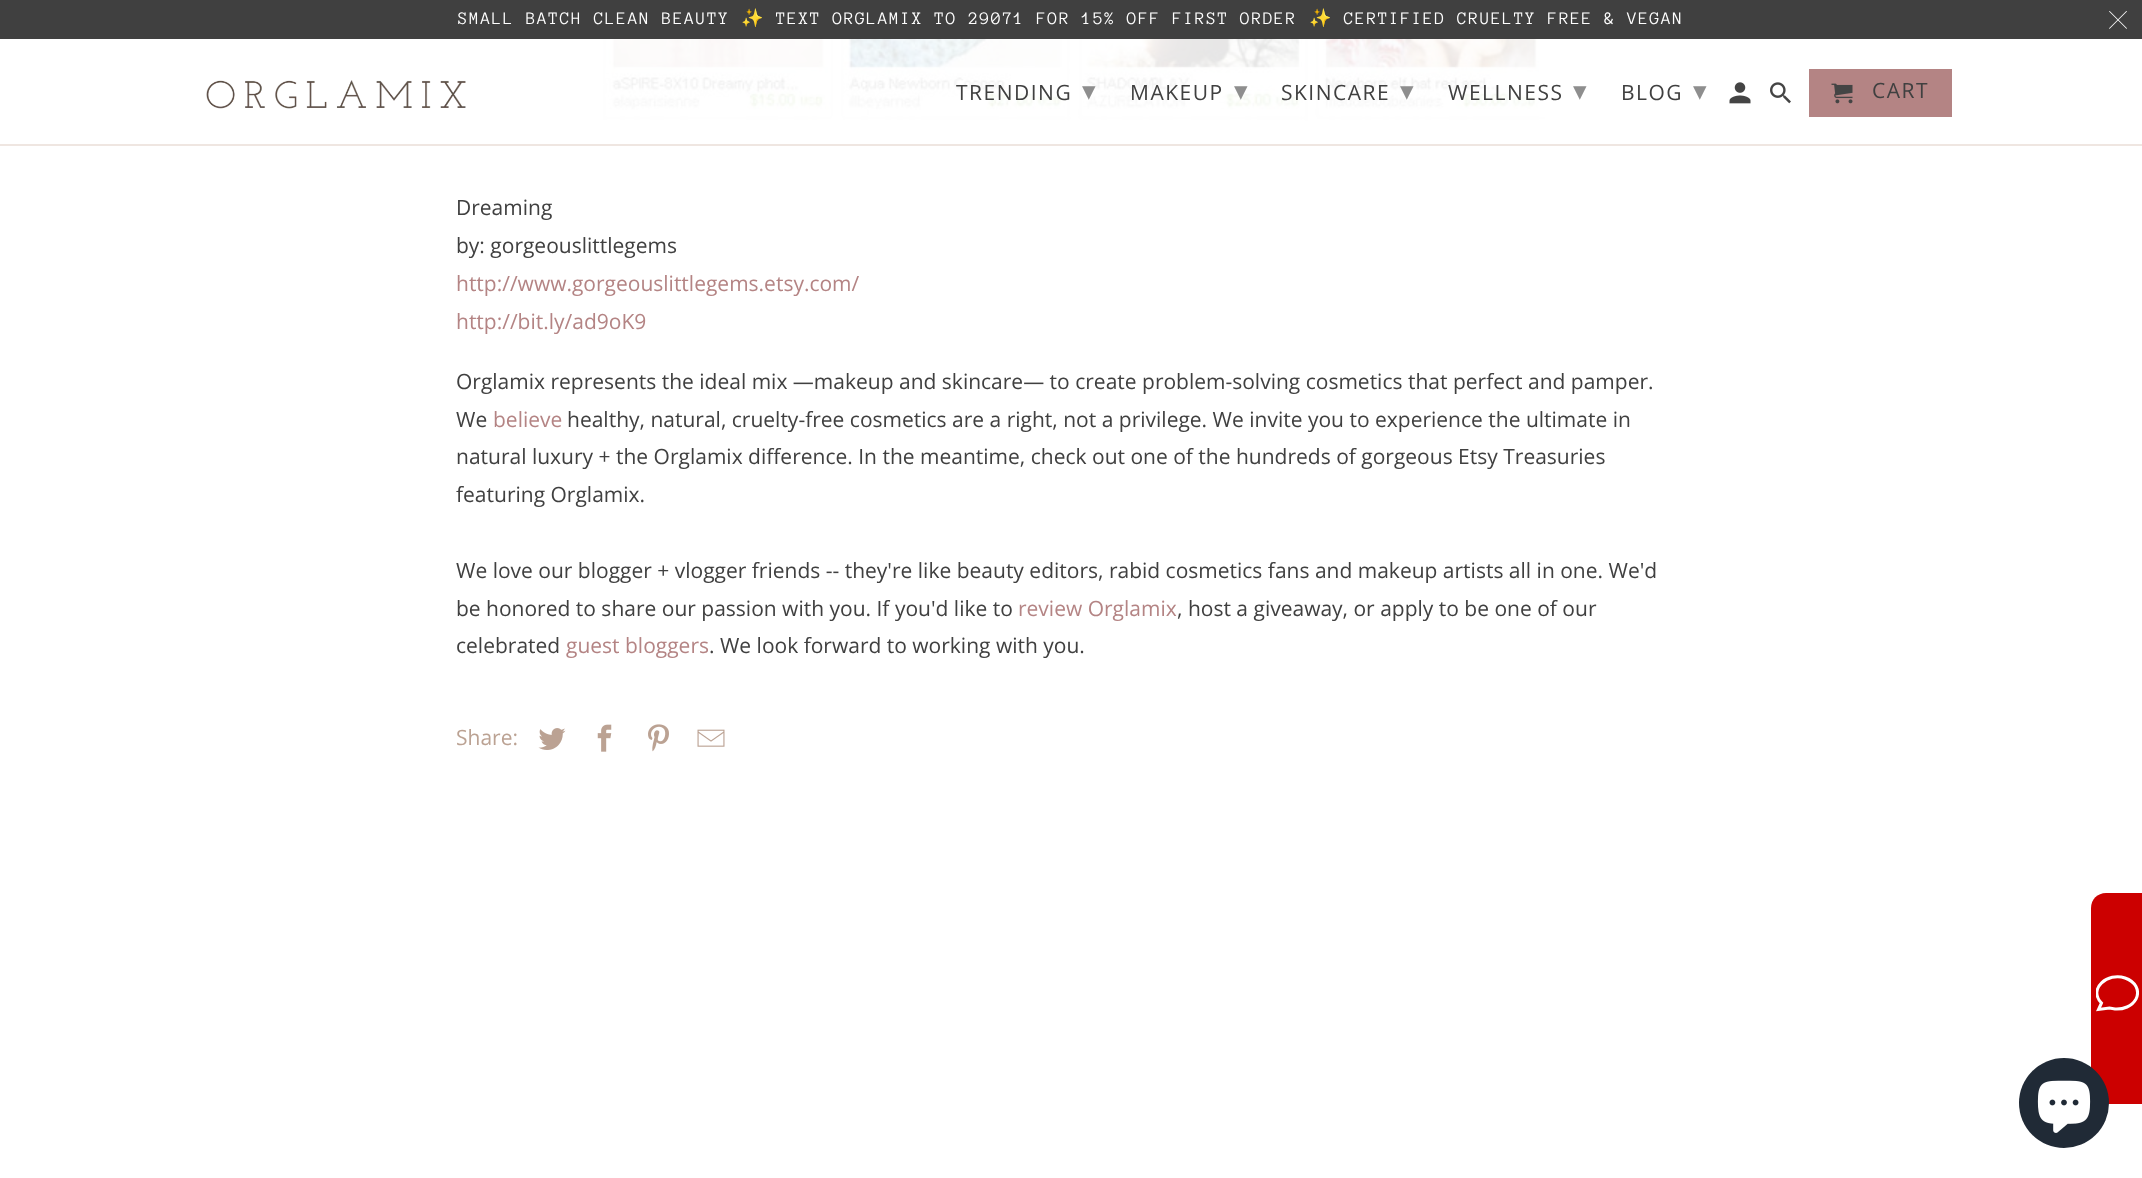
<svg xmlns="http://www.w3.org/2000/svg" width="2142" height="1178">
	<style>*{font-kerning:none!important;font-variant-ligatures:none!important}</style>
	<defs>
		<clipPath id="clip1"><rect x="2096" y="975" width="43" height="38" /></clipPath>
	</defs>
	<rect width="100%" height="100%" fill="#FFFFFF" />
	<rect x="0" y="144" width="2142" height="2" fill="#EFE6E1" />
	<rect x="0" y="0" width="2142" height="39" fill="#404040" />
	<text x="458" y="24" font-family="Anonymous Pro" font-size="18" letter-spacing="1.5" fill="#FFFFFF">SMALL BATCH CLEAN BEAUTY</text>
	<text x="741" y="24" font-family="Noto Color Emoji" font-size="18" letter-spacing="1.5" fill="#FFFFFF">✨</text>
	<text x="776" y="24" font-family="Anonymous Pro" font-size="18" letter-spacing="1.5" fill="#FFFFFF">TEXT ORGLAMIX TO 29071 FOR 15% OFF FIRST ORDER</text>
	<text x="1309" y="24" font-family="Noto Color Emoji" font-size="18" letter-spacing="1.5" fill="#FFFFFF">✨</text>
	<text x="1344" y="24" font-family="Anonymous Pro" font-size="18" letter-spacing="1.5" fill="#FFFFFF">CERTIFIED CRUELTY FREE &amp; VEGAN</text>
	<image x="2109" y="11" width="18" height="18" href="assets/img1.png" />
	<image x="206" y="80" width="260" height="29" href="assets/img2.png" />
	<image x="603" y="39" width="942" height="82" href="assets/img6.png" />
	<text x="956" y="100" font-family="Open Sans" font-size="21" letter-spacing="1.5" fill="#404040">TRENDING</text>
	<text x="1082" y="100" font-family="DejaVu Sans" font-size="27" letter-spacing="1.5" fill="#8E8E8E">▾</text>
	<text x="1130" y="100" font-family="Open Sans" font-size="21" letter-spacing="1.5" fill="#404040">MAKEUP</text>
	<text x="1234" y="100" font-family="DejaVu Sans" font-size="27" letter-spacing="1.5" fill="#8E8E8E">▾</text>
	<text x="1281" y="100" font-family="Open Sans" font-size="21" letter-spacing="1.5" fill="#404040">SKINCARE</text>
	<text x="1400" y="100" font-family="DejaVu Sans" font-size="27" letter-spacing="1.5" fill="#8E8E8E">▾</text>
	<text x="1448" y="100" font-family="Open Sans" font-size="21" letter-spacing="1.5" fill="#404040">WELLNESS</text>
	<text x="1573" y="100" font-family="DejaVu Sans" font-size="27" letter-spacing="1.5" fill="#8E8E8E">▾</text>
	<text x="1621" y="100" font-family="Open Sans" font-size="21" letter-spacing="1.5" fill="#404040">BLOG</text>
	<text x="1693" y="100" font-family="DejaVu Sans" font-size="27" letter-spacing="1.5" fill="#8E8E8E">▾</text>
	<image x="1729" y="82" width="22" height="22" href="assets/img3.png" />
	<image x="1770" y="82" width="21" height="22" href="assets/img4.png" />
	<rect x="1809" y="69" width="143" height="48" fill="#B48484" />
	<image x="1831" y="83" width="22" height="21" href="assets/img5.png" />
	<text x="1872" y="98" font-family="Open Sans" font-size="21" letter-spacing="1.5" fill="#404040">CART</text>
	<g font-family="Open Sans" font-size="21" fill="#404040">
		<text x="456" y="215">Dreaming</text>
		<text x="456" y="253">by: gorgeouslittlegems</text>
	</g>
	<g font-family="Open Sans" font-size="21" fill="#B48484">
		<text x="456" y="291">http://www.gorgeouslittlegems.etsy.com/</text>
		<text x="456" y="329">http://bit.ly/ad9oK9</text>
	</g>
	<g font-family="Open Sans" font-size="21" fill="#404040">
		<text x="456" y="389">Orglamix represents the ideal mix —makeup and skincare— to create problem-solving cosmetics that perfect and pamper.</text>
		<text x="456" y="427">We</text>
	</g>
	<text x="493" y="427" font-family="Open Sans" font-size="21" fill="#B48484">believe</text>
	<g font-family="Open Sans" font-size="21" fill="#404040">
		<text x="567" y="427">healthy, natural, cruelty-free cosmetics are a right, not a privilege. We invite you to experience the ultimate in</text>
		<text x="456" y="464">natural luxury + the Orglamix difference. In the meantime, check out one of the hundreds of gorgeous Etsy Treasuries</text>
		<text x="456" y="502">featuring Orglamix.</text>
		<text x="456" y="578">We love our blogger + vlogger friends -- they're like beauty editors, rabid cosmetics fans and makeup artists all in one. We'd</text>
		<text x="456" y="616">be honored to share our passion with you. If you'd like to</text>
	</g>
	<text x="1018" y="616" font-family="Open Sans" font-size="21" fill="#B48484">review Orglamix</text>
	<g font-family="Open Sans" font-size="21" fill="#404040">
		<text x="1177" y="616">, host a giveaway, or apply to be one of our</text>
		<text x="456" y="653">celebrated</text>
	</g>
	<text x="566" y="653" font-family="Open Sans" font-size="21" fill="#B48484">guest bloggers</text>
	<text x="709" y="653" font-family="Open Sans" font-size="21" fill="#404040">. We look forward to working with you.</text>
	<text x="456" y="745" font-family="Open Sans" font-size="21" fill="#BBA293">Share:</text>
	<image x="538" y="728" width="28" height="22" href="assets/img7.png" />
	<image x="597" y="724" width="15" height="28" href="assets/img8.png" />
	<image x="648" y="724" width="21" height="28" href="assets/img9.png" />
	<image x="697" y="729" width="28" height="18" href="assets/img10.png" />
	<path d="M2106 893H2142V1104H2106C2097.5 1104 2091 1097.5 2091 1089V908C2091 899.5 2097.5 893 2106 893Z" fill="#CC0000" />
	<circle cx="2064" cy="1103" r="45" fill="#202A36" />
	<image x="2037" y="1080" width="54" height="53" href="assets/img11.png" />
	<g clip-path="url(#clip1)">
		<path d="M2101.5 1003C2087.5 988.5 2108 972 2125 978C2129.5 979.5 2133.5 982 2136 986.5C2138 990.5 2138 995 2136 999C2132 1006.5 2123 1009.5 2115 1009L2109.5 1008L2098.5 1009.5Z" fill="none" stroke="#FFFFFF" stroke-width="3" />
	</g>
</svg>
